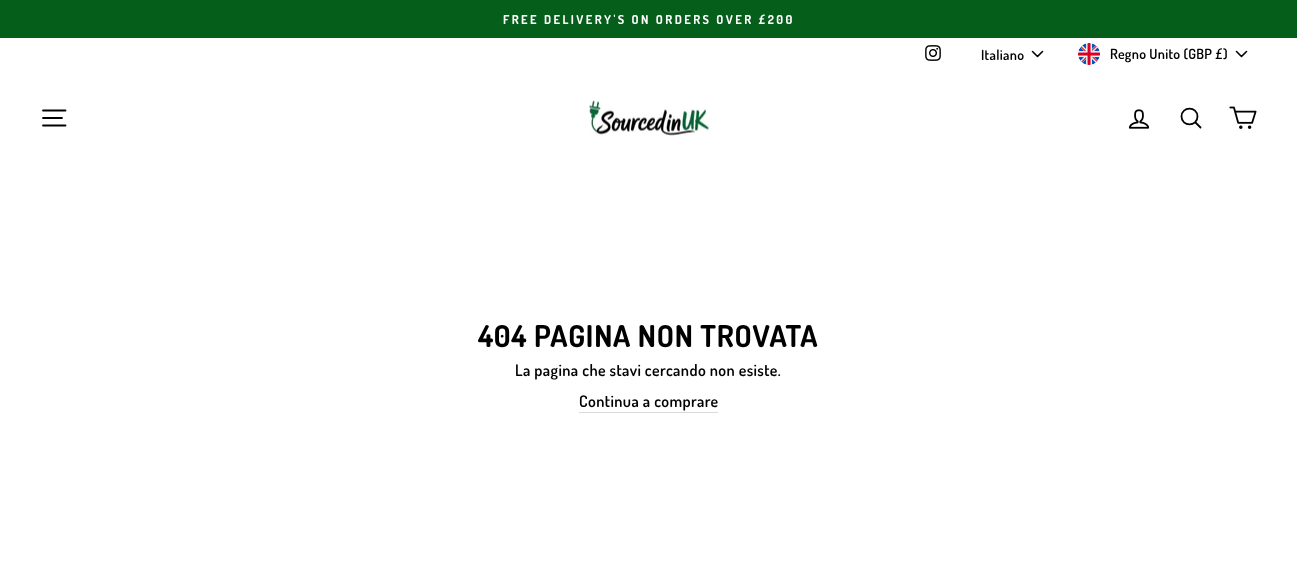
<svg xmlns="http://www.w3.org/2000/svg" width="1297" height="566">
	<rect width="100%" height="100%" fill="#FFFFFF" />
	<rect x="0" y="0" width="1297" height="38" fill="#055E1A" />
	<text x="503" y="24" font-family="Dosis" font-size="12.25" font-weight="700" letter-spacing="2.45" fill="#FFFFFF">FREE DELIVERY'S ON ORDERS OVER £200</text>
	<image x="925" y="45" width="16" height="16" href="assets/img1.png" />
	<text x="981" y="60" font-family="Dosis" font-size="14" font-weight="600" letter-spacing="0.3" fill="#000000">Italiano</text>
	<path d="M1032.5 51.5L1037.5 56.5L1042.5 51.5" fill="none" stroke="#000000" stroke-width="1.6" stroke-linecap="round" stroke-linejoin="round" />
	<image x="1078" y="43" width="22" height="22" href="assets/img2.png" />
	<text x="1110" y="59" font-family="Dosis" font-size="14" font-weight="600" letter-spacing="0.3" fill="#000000">Regno Unito (GBP £)</text>
	<path d="M1236.5 51.5L1241.5 56.5L1246.5 51.5" fill="none" stroke="#000000" stroke-width="1.6" stroke-linecap="round" stroke-linejoin="round" />
	<path d="M43 110.5H65.5M43 118H62M43 125.5H65.5" fill="none" stroke="#000000" stroke-width="1.8" stroke-linecap="round" stroke-linejoin="round" />
	<image x="589" y="100" width="121" height="36" href="assets/img3.png" />
	<image x="1128" y="109" width="22" height="20" href="assets/img4.png" />
	<path d="M1197.5 116.5C1197.5 127 1181.5 127 1181.5 116.5C1181.5 106 1197.5 106 1197.5 116.5ZM1200.5 127.5L1195.5 122.5" fill="none" stroke="#000000" stroke-width="1.8" stroke-linecap="round" stroke-linejoin="round" />
	<image x="1229" y="106" width="28" height="23" href="assets/img5.png" />
	<text x="478" y="347" font-family="Dosis" font-size="30" font-weight="700" letter-spacing="0.75" fill="#000000">404 PAGINA NON TROVATA</text>
	<text x="515" y="376" font-family="Dosis" font-size="16" font-weight="600" letter-spacing="0.4" fill="#000000">La pagina che stavi cercando non esiste.</text>
	<rect x="579" y="412" width="139" height="1" fill="#D9D9D9" />
	<text x="579" y="407" font-family="Dosis" font-size="16" font-weight="600" letter-spacing="0.4" fill="#000000">Continua a comprare</text>
</svg>
